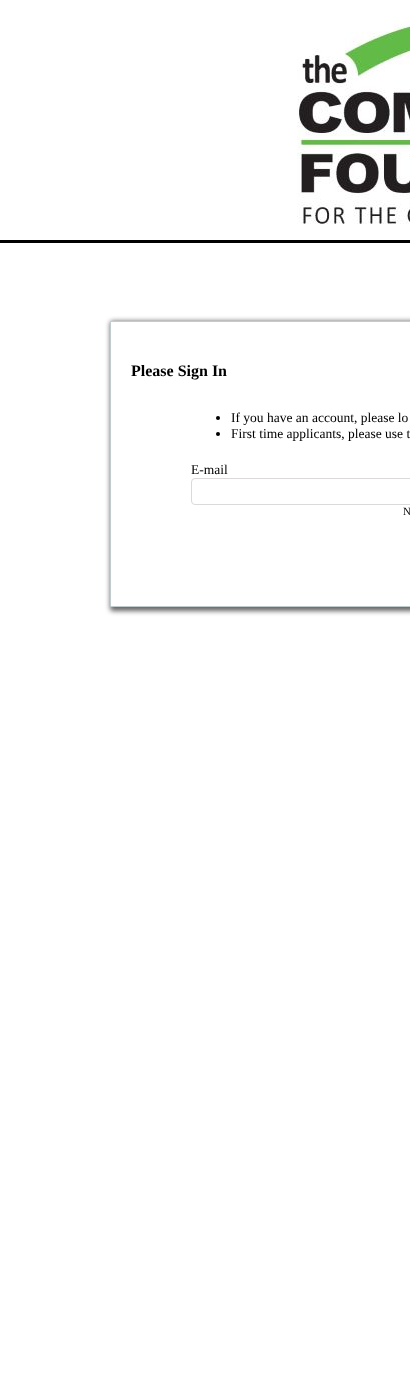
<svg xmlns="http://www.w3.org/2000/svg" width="410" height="1386">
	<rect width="100%" height="100%" fill="#FFFFFF" />
	<image x="297" y="17" width="113" height="207" href="assets/img1.png" />
	<rect x="0" y="240" width="410" height="3" fill="#000000" />
	<rect x="110" y="321" width="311" height="290" rx="3" fill="#666666" filter="blur(2.5px)" />
	<rect x="110.5" y="321.5" width="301" height="285" rx="0.5" fill="#FFFFFF" stroke="#C1CDCD" />
	<text x="131" y="376" font-family="Liberation Serif" font-size="16" font-weight="700" fill="#000000">Please Sign In</text>
	<circle cx="218" cy="418" r="2" fill="#000000" />
	<text x="231" y="422" font-family="Liberation Serif" font-size="13.5" fill="#000000">If you have an account, please lo</text>
	<circle cx="218" cy="434" r="2" fill="#000000" />
	<g font-family="Liberation Serif" font-size="13.5" fill="#000000">
		<text x="231" y="438">First time applicants, please use t</text>
		<text x="191" y="474">E-mail</text>
	</g>
	<rect x="191.5" y="478.5" width="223" height="26" rx="3.5" fill="none" stroke="#DBD9D9" />
	<text x="403" y="515" font-family="Liberation Serif" font-size="11" fill="#000000">N</text>
</svg>
